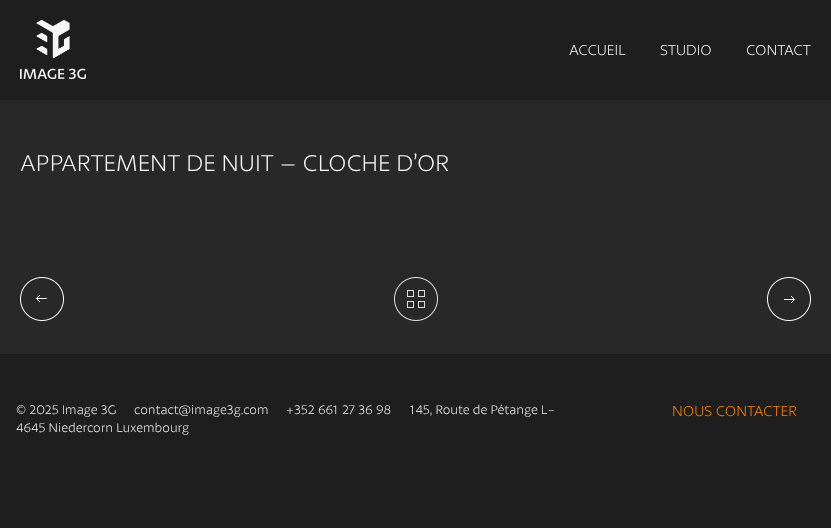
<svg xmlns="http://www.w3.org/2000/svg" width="831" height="528">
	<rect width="100%" height="100%" fill="#1E1E1E" />
	<image x="20" y="20" width="66" height="59" href="assets/img1.png" />
	<g font-family="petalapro" font-size="15" fill="#F5F5F5">
		<text x="569" y="55">ACCUEIL</text>
		<text x="660" y="55">STUDIO</text>
		<text x="746" y="55">CONTACT</text>
	</g>
	<rect x="0" y="100" width="831" height="254" fill="#282828" />
	<text x="20" y="171" font-family="petalapro" font-size="24" fill="#F5F5F5">APPARTEMENT DE NUIT – CLOCHE D’OR</text>
	<image x="20" y="277" width="44" height="44" href="assets/img2.png" />
	<image x="394" y="277" width="44" height="44" href="assets/img3.png" />
	<image x="767" y="277" width="44" height="44" href="assets/img4.png" />
	<g font-family="petalapro" font-size="13" fill="#F5F5F5">
		<text x="16" y="414">© 2025 Image 3G</text>
		<text x="134" y="414">contact@image3g.com</text>
		<text x="286" y="414">+352 661 27 36 98</text>
		<text x="409" y="414">145, Route de Pétange L-</text>
		<text x="16" y="432">4645 Niedercorn Luxembourg</text>
	</g>
	<text x="672" y="416" font-family="petalapro" font-size="15" fill="#FF8500">NOUS CONTACTER</text>
</svg>
